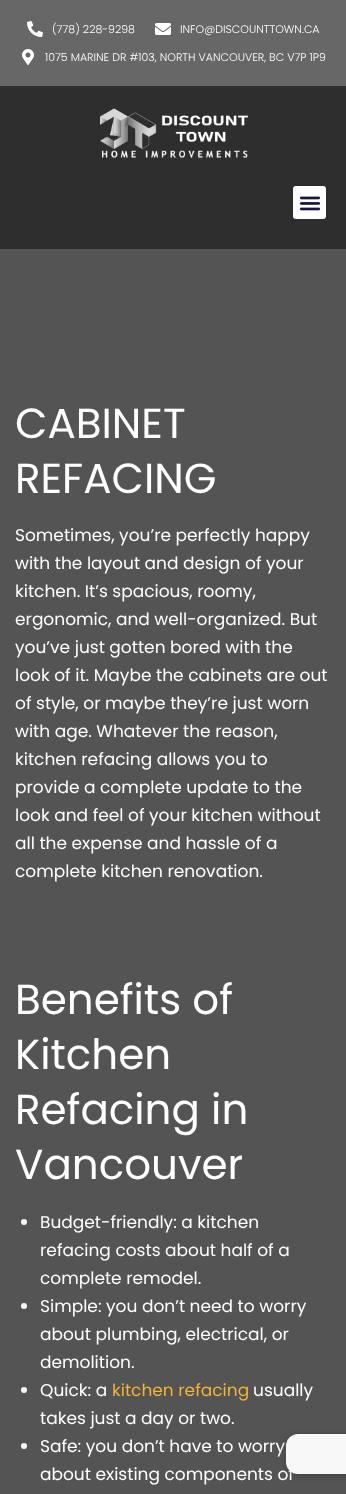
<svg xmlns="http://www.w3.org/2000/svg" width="346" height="1494">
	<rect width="100%" height="100%" fill="#676767" />
	<image x="27" y="21" width="16" height="16" href="assets/img1.png" />
	<text x="52" y="33" font-family="Poppins" font-size="11" font-weight="300" fill="#FFFFFF">(778) 228-9298</text>
	<image x="155" y="23" width="16" height="12" href="assets/img2.png" />
	<text x="180" y="33" font-family="Poppins" font-size="11" font-weight="300" fill="#FFFFFF">INFO@DISCOUNTTOWN.CA</text>
	<image x="22" y="49" width="12" height="16" href="assets/img3.png" />
	<text x="45" y="61" font-family="Poppins" font-size="11" font-weight="300" fill="#FFFFFF">1075 MARINE DR #103, NORTH VANCOUVER, BC V7P 1P9</text>
	<rect x="0" y="86" width="346" height="163" fill="#2E2E2E" />
	<image x="100" y="108" width="148" height="51" href="assets/img4.png" />
	<rect x="293" y="186" width="33" height="33" rx="3" fill="#FFFFFF" />
	<image x="299" y="196" width="22" height="15" href="assets/img5.png" />
	<rect x="0" y="249" width="346" height="1245" fill="#545454" />
	<g font-family="Poppins" font-size="42" fill="#FFFFFF">
		<text x="15" y="438">CABINET</text>
		<text x="15" y="493">REFACING</text>
	</g>
	<g font-family="Poppins" font-size="17" fill="#FFFFFF">
		<text x="15" y="541">Sometimes, you’re perfectly happy</text>
		<text x="15" y="569">with the layout and design of your</text>
		<text x="15" y="597">kitchen. It’s spacious, roomy,</text>
		<text x="15" y="625">ergonomic, and well-organized. But</text>
		<text x="15" y="653">you’ve just gotten bored with the</text>
		<text x="15" y="681">look of it. Maybe the cabinets are out</text>
		<text x="15" y="709">of style, or maybe they’re just worn</text>
		<text x="15" y="737">with age. Whatever the reason,</text>
		<text x="15" y="765">kitchen refacing allows you to</text>
		<text x="15" y="793">provide a complete update to the</text>
		<text x="15" y="821">look and feel of your kitchen without</text>
		<text x="15" y="849">all the expense and hassle of a</text>
		<text x="15" y="877">complete kitchen renovation.</text>
	</g>
	<g font-family="Poppins" font-size="42" fill="#FFFFFF">
		<text x="15" y="1014">Benefits of</text>
		<text x="15" y="1069">Kitchen</text>
		<text x="15" y="1124">Refacing in</text>
		<text x="15" y="1179">Vancouver</text>
	</g>
	<circle cx="24" cy="1222" r="3" fill="#FCFCFC" />
	<g font-family="Poppins" font-size="17" fill="#FFFFFF">
		<text x="40" y="1228">Budget-friendly: a kitchen</text>
		<text x="40" y="1256">refacing costs about half of a</text>
		<text x="40" y="1284">complete remodel.</text>
	</g>
	<circle cx="24" cy="1306" r="3" fill="#FCFCFC" />
	<g font-family="Poppins" font-size="17" fill="#FFFFFF">
		<text x="40" y="1312">Simple: you don’t need to worry</text>
		<text x="40" y="1340">about plumbing, electrical, or</text>
		<text x="40" y="1368">demolition.</text>
	</g>
	<circle cx="24" cy="1390" r="3" fill="#FCFCFC" />
	<text x="40" y="1396" font-family="Poppins" font-size="17" fill="#FFFFFF">Quick: a</text>
	<text x="112" y="1396" font-family="Poppins" font-size="17" fill="#F4B237">kitchen refacing</text>
	<g font-family="Poppins" font-size="17" fill="#FFFFFF">
		<text x="253" y="1396">usually</text>
		<text x="40" y="1424">takes just a day or two.</text>
	</g>
	<circle cx="24" cy="1446" r="3" fill="#FCFCFC" />
	<g font-family="Poppins" font-size="17" fill="#FFFFFF">
		<text x="40" y="1452">Safe: you don’t have to worry</text>
		<text x="40" y="1480">about existing components of</text>
	</g>
	<rect x="286" y="1436" width="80" height="40" rx="12" fill="#000000" fill-opacity="0.2" filter="blur(5px)" />
	<rect x="286" y="1434" width="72" height="40" rx="12" fill="#F8F8F8" />
</svg>
